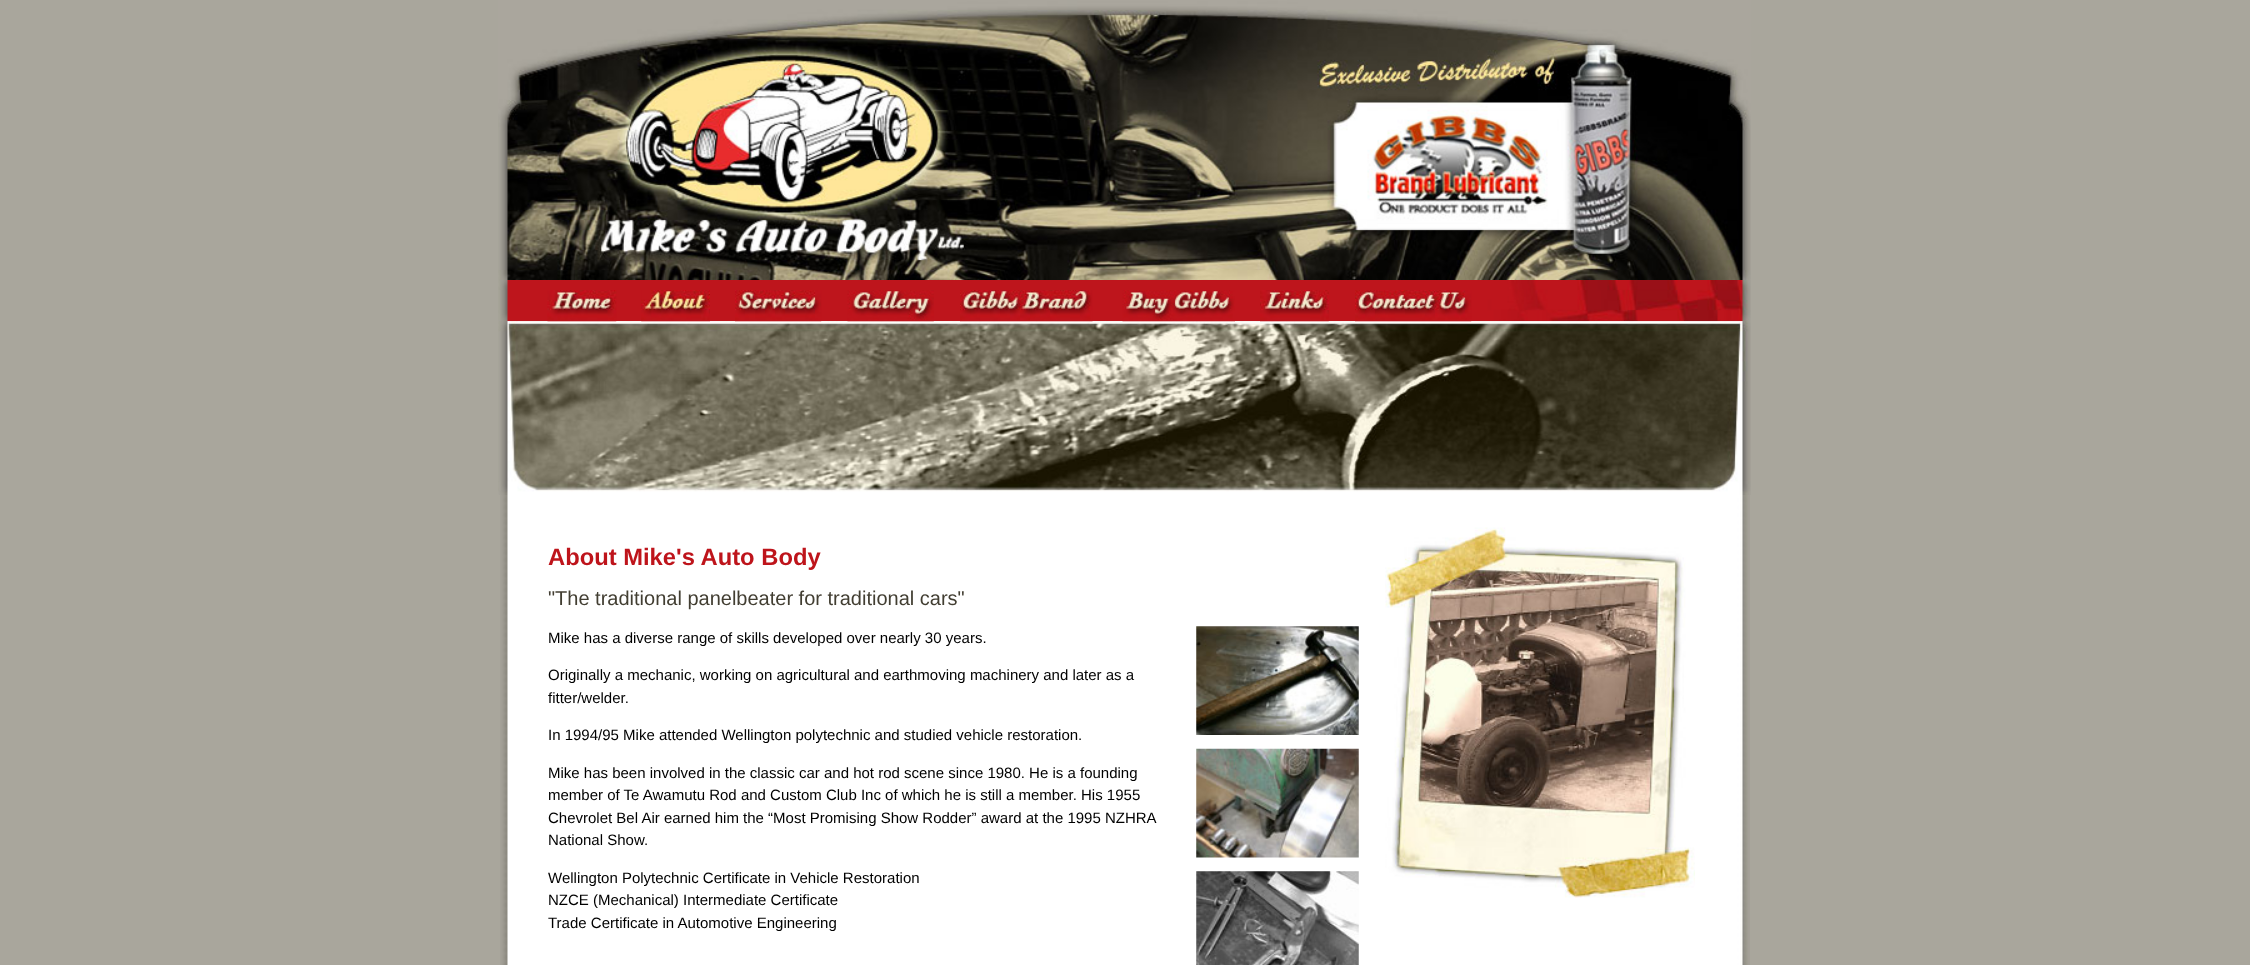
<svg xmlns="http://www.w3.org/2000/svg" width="2250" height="965">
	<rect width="100%" height="100%" fill="#A9A69C" />
	<image x="500" y="321" width="1250" height="644" href="assets/img1.png" />
	<image x="498" y="0" width="1253" height="280" href="assets/img2.png" />
	<image x="498" y="280" width="1253" height="42" href="assets/img3.png" />
	<image x="498" y="321" width="1253" height="174" href="assets/img12.png" />
	<image x="547" y="290" width="70" height="32" href="assets/img4.png" />
	<image x="641" y="290" width="69" height="32" href="assets/img5.png" />
	<image x="735" y="290" width="87" height="32" href="assets/img6.png" />
	<image x="847" y="290" width="87" height="32" href="assets/img7.png" />
	<image x="960" y="290" width="133" height="32" href="assets/img8.png" />
	<image x="1122" y="290" width="113" height="32" href="assets/img9.png" />
	<image x="1260" y="290" width="69" height="32" href="assets/img10.png" />
	<image x="1355" y="290" width="117" height="32" href="assets/img11.png" />
	<text x="548" y="565" font-family="Liberation Sans" font-size="23.75" font-weight="700" fill="#BE141B">About Mike's Auto Body</text>
	<text x="548" y="605" font-family="Liberation Sans" font-size="20" fill="#423E32">"The traditional panelbeater for traditional cars"</text>
	<text x="548" y="643" font-family="Liberation Sans" font-size="15" fill="#000000">Mike has a diverse range of skills developed over nearly 30 years.</text>
	<image x="1196" y="626" width="163" height="109" href="assets/img13.png" />
	<image x="1196" y="748" width="163" height="110" href="assets/img14.png" />
	<image x="1196" y="871" width="163" height="94" href="assets/img15.png" />
	<g font-family="Liberation Sans" font-size="15" fill="#000000">
		<text x="548" y="680">Originally a mechanic, working on agricultural and earthmoving machinery and later as a</text>
		<text x="548" y="703">fitter/welder.</text>
		<text x="548" y="740">In 1994/95 Mike attended Wellington polytechnic and studied vehicle restoration.</text>
		<text x="548" y="778">Mike has been involved in the classic car and hot rod scene since 1980. He is a founding</text>
		<text x="548" y="800">member of Te Awamutu Rod and Custom Club Inc of which he is still a member. His 1955</text>
		<text x="548" y="823">Chevrolet Bel Air earned him the “Most Promising Show Rodder” award at the 1995 NZHRA</text>
		<text x="548" y="845">National Show.</text>
		<text x="548" y="883">Wellington Polytechnic Certificate in Vehicle Restoration</text>
		<text x="548" y="905">NZCE (Mechanical) Intermediate Certificate</text>
		<text x="548" y="928">Trade Certificate in Automotive Engineering</text>
	</g>
	<image x="1385" y="527" width="310" height="371" href="assets/img16.png" />
</svg>
